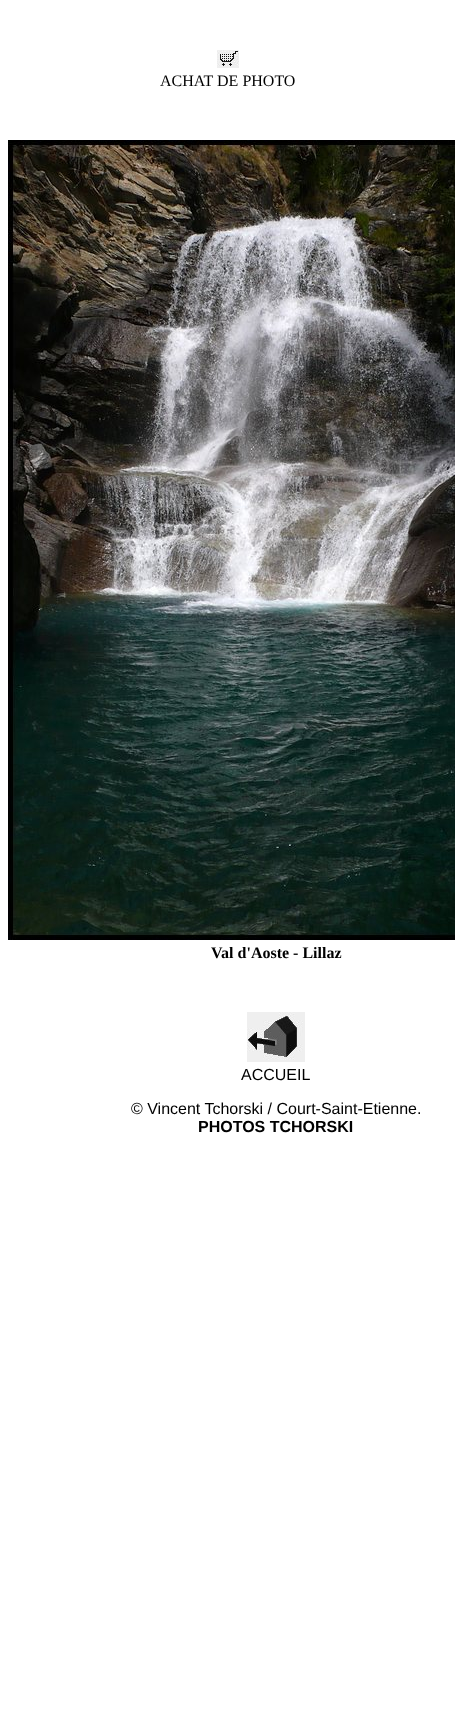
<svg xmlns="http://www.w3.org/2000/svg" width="455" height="1733">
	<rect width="100%" height="100%" fill="#FFFFFF" />
	<image x="217" y="50" width="22" height="18" href="assets/img1.png" />
	<text x="160" y="86" font-family="Liberation Serif" font-size="16" fill="#000000">ACHAT DE PHOTO</text>
	<image x="8" y="140" width="447" height="800" href="assets/img2.png" />
	<text x="211" y="958" font-family="Liberation Serif" font-size="16" font-weight="700" fill="#000000">Val d'Aoste - Lillaz</text>
	<image x="247" y="1012" width="58" height="50" href="assets/img3.png" />
	<g font-family="Liberation Sans" font-size="16" fill="#000000">
		<text x="241" y="1080">ACCUEIL</text>
		<text x="131" y="1114">© Vincent Tchorski / Court-Saint-Etienne.</text>
	</g>
	<text x="198" y="1132" font-family="Liberation Sans" font-size="16" font-weight="700" fill="#000000">PHOTOS TCHORSKI</text>
</svg>
